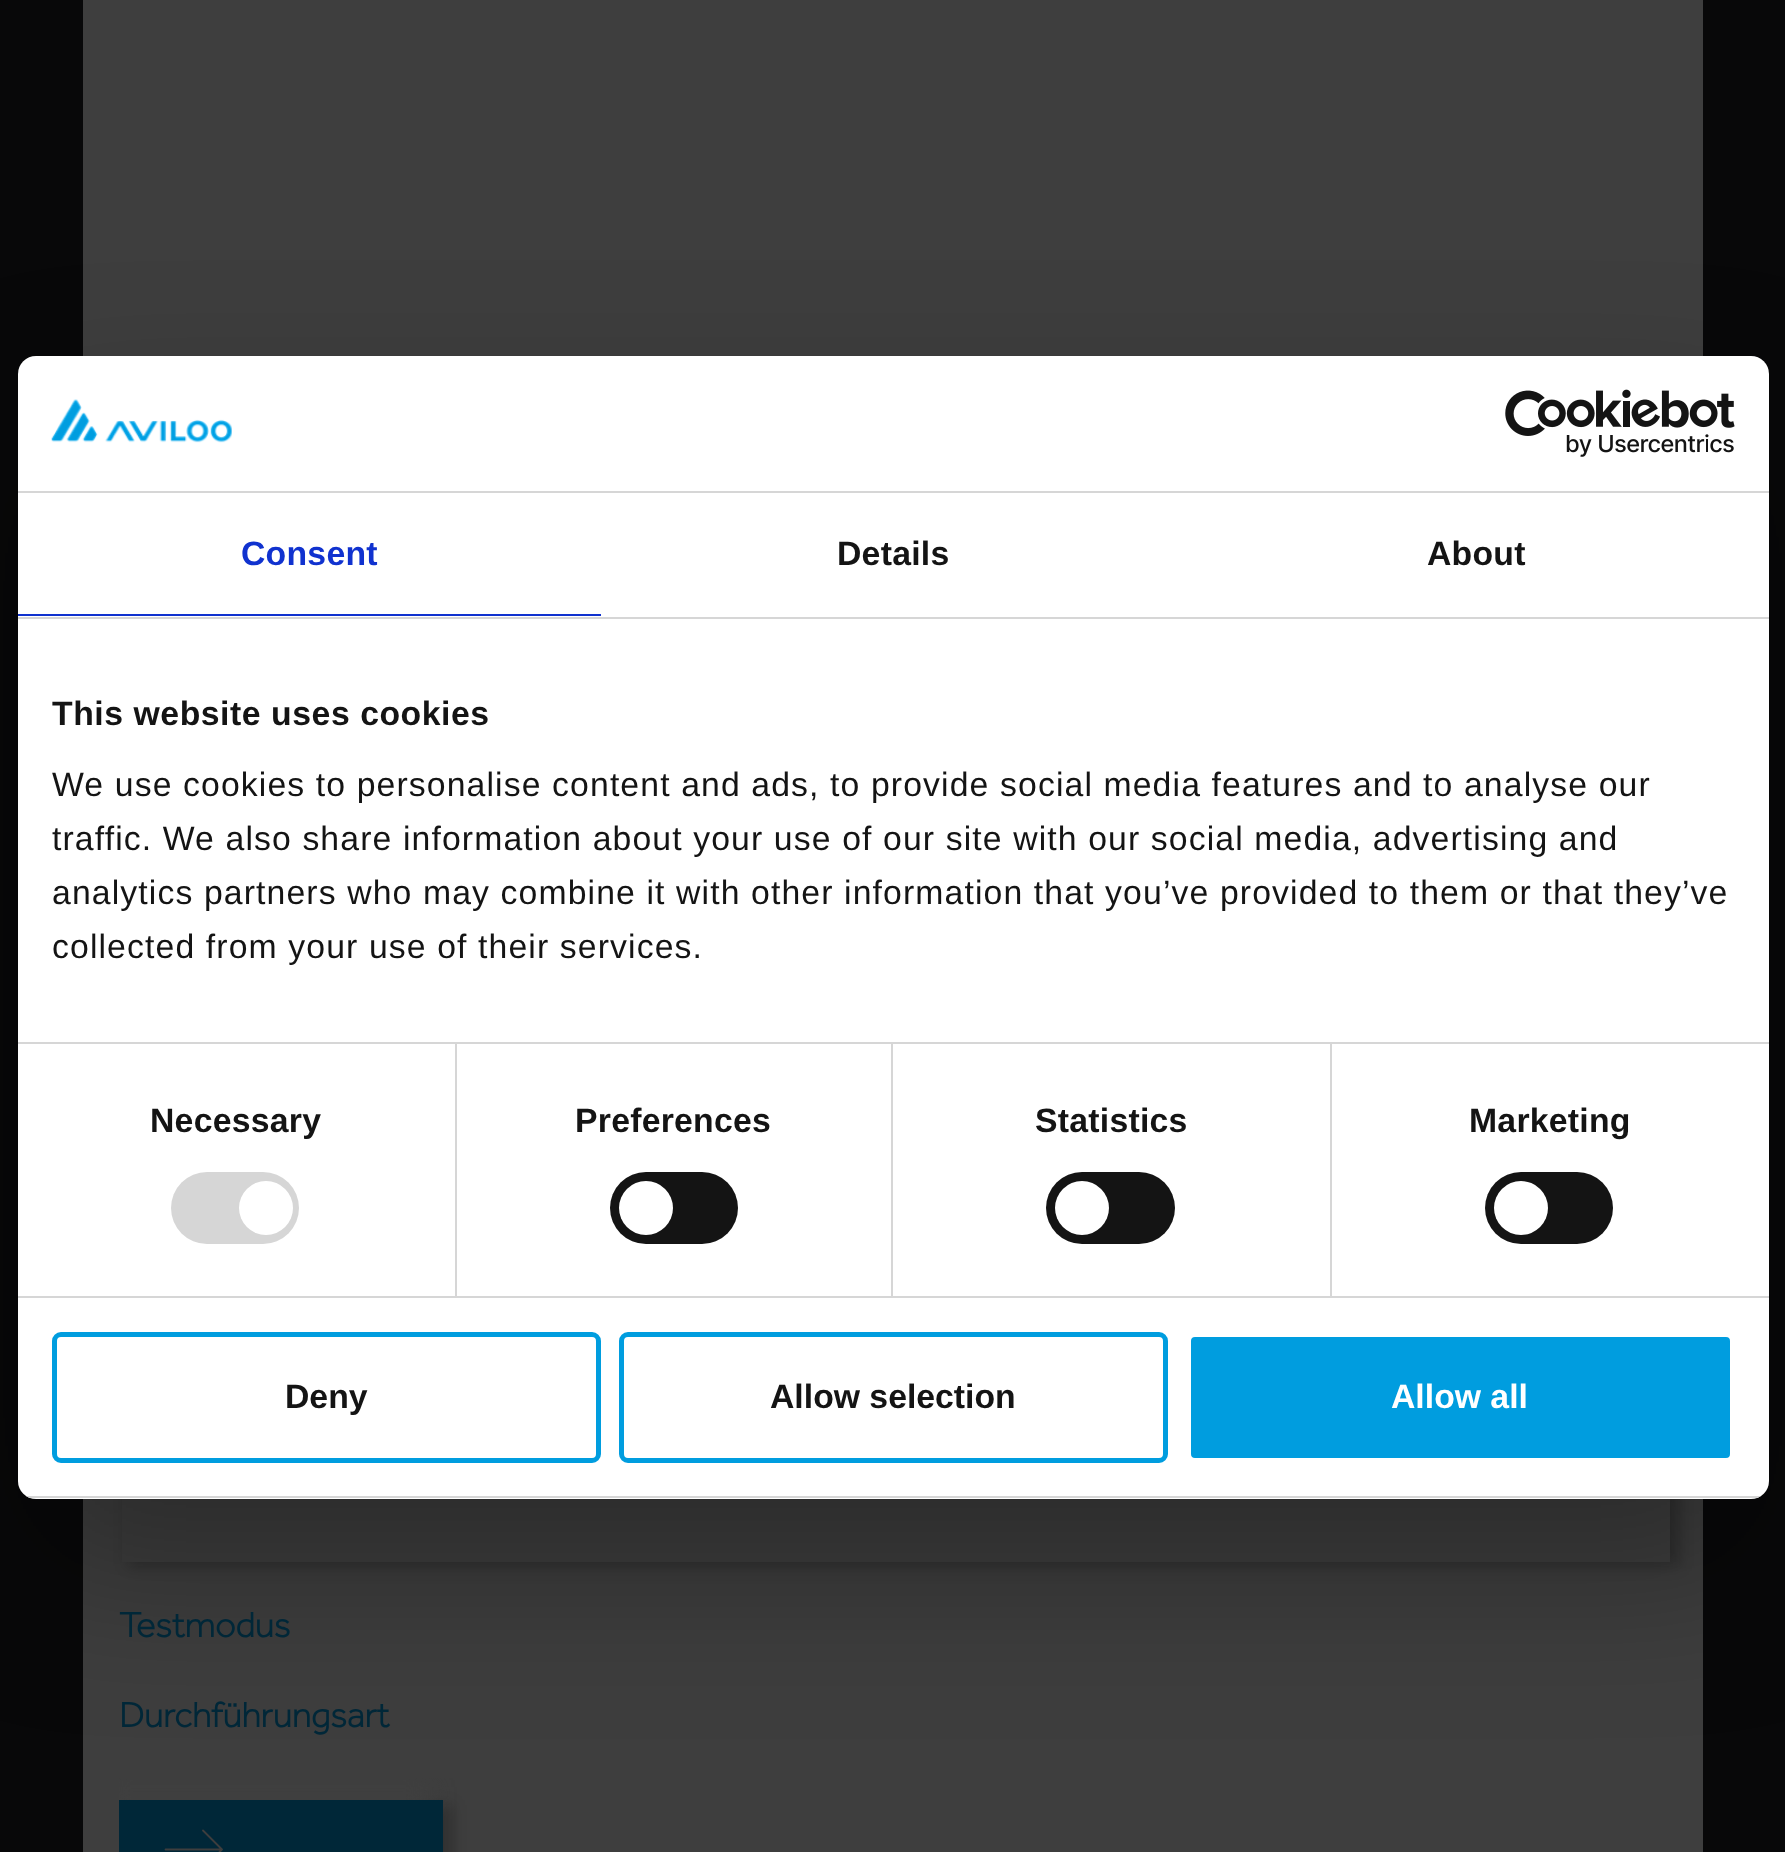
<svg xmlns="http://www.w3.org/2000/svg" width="1785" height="1852">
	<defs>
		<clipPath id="clip1"><rect x="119" y="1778" width="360" height="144" /></clipPath>
		<clipPath id="clip2"><rect x="18" y="356" width="1751" height="1143" rx="18" /></clipPath>
	</defs>
	<rect width="100%" height="100%" fill="#080809" />
	<rect x="83" y="0" width="1620" height="1852" fill="#3E3E3E" />
	<rect x="128" y="1467" width="1551" height="99" fill="#040404" fill-opacity="0.25" filter="blur(7px)" />
	<rect x="122" y="1499" width="1548" height="63" fill="#3E3E3E" />
	<g clip-path="url(#clip1)">
		<rect x="128" y="1805" width="324" height="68" fill="#040404" fill-opacity="0.25" filter="blur(7px)" />
		<rect x="106" y="1787" width="324" height="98" fill="#404040" filter="blur(11px)" />
	</g>
	<rect x="119" y="1800" width="324" height="52" fill="#002738" />
	<rect x="18" y="428" width="1751" height="1143" rx="18" fill="#000000" fill-opacity="0.3" filter="blur(76.5px)" />
	<rect x="18" y="356" width="1751" height="1143" rx="18" fill="#FFFFFF" />
	<rect x="18" y="491" width="1751" height="2" fill="#D6D6D6" />
	<image x="51" y="399" width="181" height="44" href="assets/img1.png" />
	<image x="1505" y="389" width="230" height="68" href="assets/img2.png" />
	<rect x="18" y="617" width="1751" height="2" fill="#D6D6D6" />
	<rect x="18" y="614" width="583" height="2" fill="#1032CF" />
	<text x="241" y="565" font-family="Liberation Sans" font-size="33.75" font-weight="700" letter-spacing="0.25" fill="#1032CF">Consent</text>
	<g font-family="Liberation Sans" font-size="33.75" font-weight="700" letter-spacing="0.25" fill="#141414">
		<text x="837" y="565">Details</text>
		<text x="1427" y="565">About</text>
	</g>
	<rect x="18" y="1042" width="1751" height="2" fill="#D6D6D6" />
	<text x="52" y="725" font-family="Liberation Sans" font-size="33.75" font-weight="700" letter-spacing="0.55" fill="#141414">This website uses cookies</text>
	<g font-family="Liberation Sans" font-size="33.75" letter-spacing="1.12" fill="#141414">
		<text x="52" y="796">We use cookies to personalise content and ads, to provide social media features and to analyse our</text>
		<text x="52" y="850">traffic. We also share information about your use of our site with our social media, advertising and</text>
		<text x="52" y="904">analytics partners who may combine it with other information that you’ve provided to them or that they’ve</text>
		<text x="52" y="958">collected from your use of their services.</text>
	</g>
	<rect x="18" y="1296" width="1751" height="2" fill="#D6D6D6" />
	<rect x="455" y="1044" width="2" height="252" fill="#D6D6D6" />
	<text x="150" y="1132" font-family="Liberation Sans" font-size="33.75" font-weight="700" letter-spacing="0.25" fill="#141414">Necessary</text>
	<rect x="171" y="1172" width="128" height="72" rx="36" fill="#D6D6D6" />
	<circle cx="266" cy="1208" r="27" fill="#FFFFFF" />
	<rect x="891" y="1044" width="2" height="252" fill="#D6D6D6" />
	<text x="575" y="1132" font-family="Liberation Sans" font-size="33.75" font-weight="700" letter-spacing="0.25" fill="#141414">Preferences</text>
	<rect x="610" y="1172" width="128" height="72" rx="36" fill="#141414" />
	<circle cx="646" cy="1208" r="27" fill="#FFFFFF" />
	<rect x="1330" y="1044" width="2" height="252" fill="#D6D6D6" />
	<text x="1035" y="1132" font-family="Liberation Sans" font-size="33.75" font-weight="700" letter-spacing="0.25" fill="#141414">Statistics</text>
	<rect x="1046" y="1172" width="129" height="72" rx="36" fill="#141414" />
	<circle cx="1082" cy="1208" r="27" fill="#FFFFFF" />
	<text x="1469" y="1132" font-family="Liberation Sans" font-size="33.75" font-weight="700" letter-spacing="0.25" fill="#141414">Marketing</text>
	<rect x="1485" y="1172" width="128" height="72" rx="36" fill="#141414" />
	<circle cx="1521" cy="1208" r="27" fill="#FFFFFF" />
	<g clip-path="url(#clip2)">
		<rect x="18" y="1496" width="1751" height="2" fill="#D6D6D6" />
	</g>
	<rect x="54.5" y="1334.5" width="544" height="126" rx="6.5" fill="none" stroke="#009DDF" stroke-width="5" />
	<text x="285" y="1408" font-family="Liberation Sans" font-size="33.75" font-weight="700" fill="#141414">Deny</text>
	<rect x="621.5" y="1334.5" width="544" height="126" rx="6.5" fill="none" stroke="#009DDF" stroke-width="5" />
	<text x="770" y="1408" font-family="Liberation Sans" font-size="33.75" font-weight="700" fill="#141414">Allow selection</text>
	<rect x="1188.5" y="1334.5" width="544" height="126" rx="6.5" fill="#009DDF" stroke="#FFFFFF" stroke-width="5" />
	<text x="1391" y="1408" font-family="Liberation Sans" font-size="33.75" font-weight="700" fill="#FFFFFF">Allow all</text>
	<g font-family="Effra" font-size="36" font-weight="700" fill="#002738">
		<text x="119" y="1637">Testmodus</text>
		<text x="119" y="1727">Durchführungsart</text>
	</g>
	<path d="M165.5 1849.5H222M203 1830.5L222 1849.5L203 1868.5" fill="none" stroke="#3E3E3E" stroke-width="1.8" stroke-linecap="round" stroke-linejoin="round" />
</svg>
